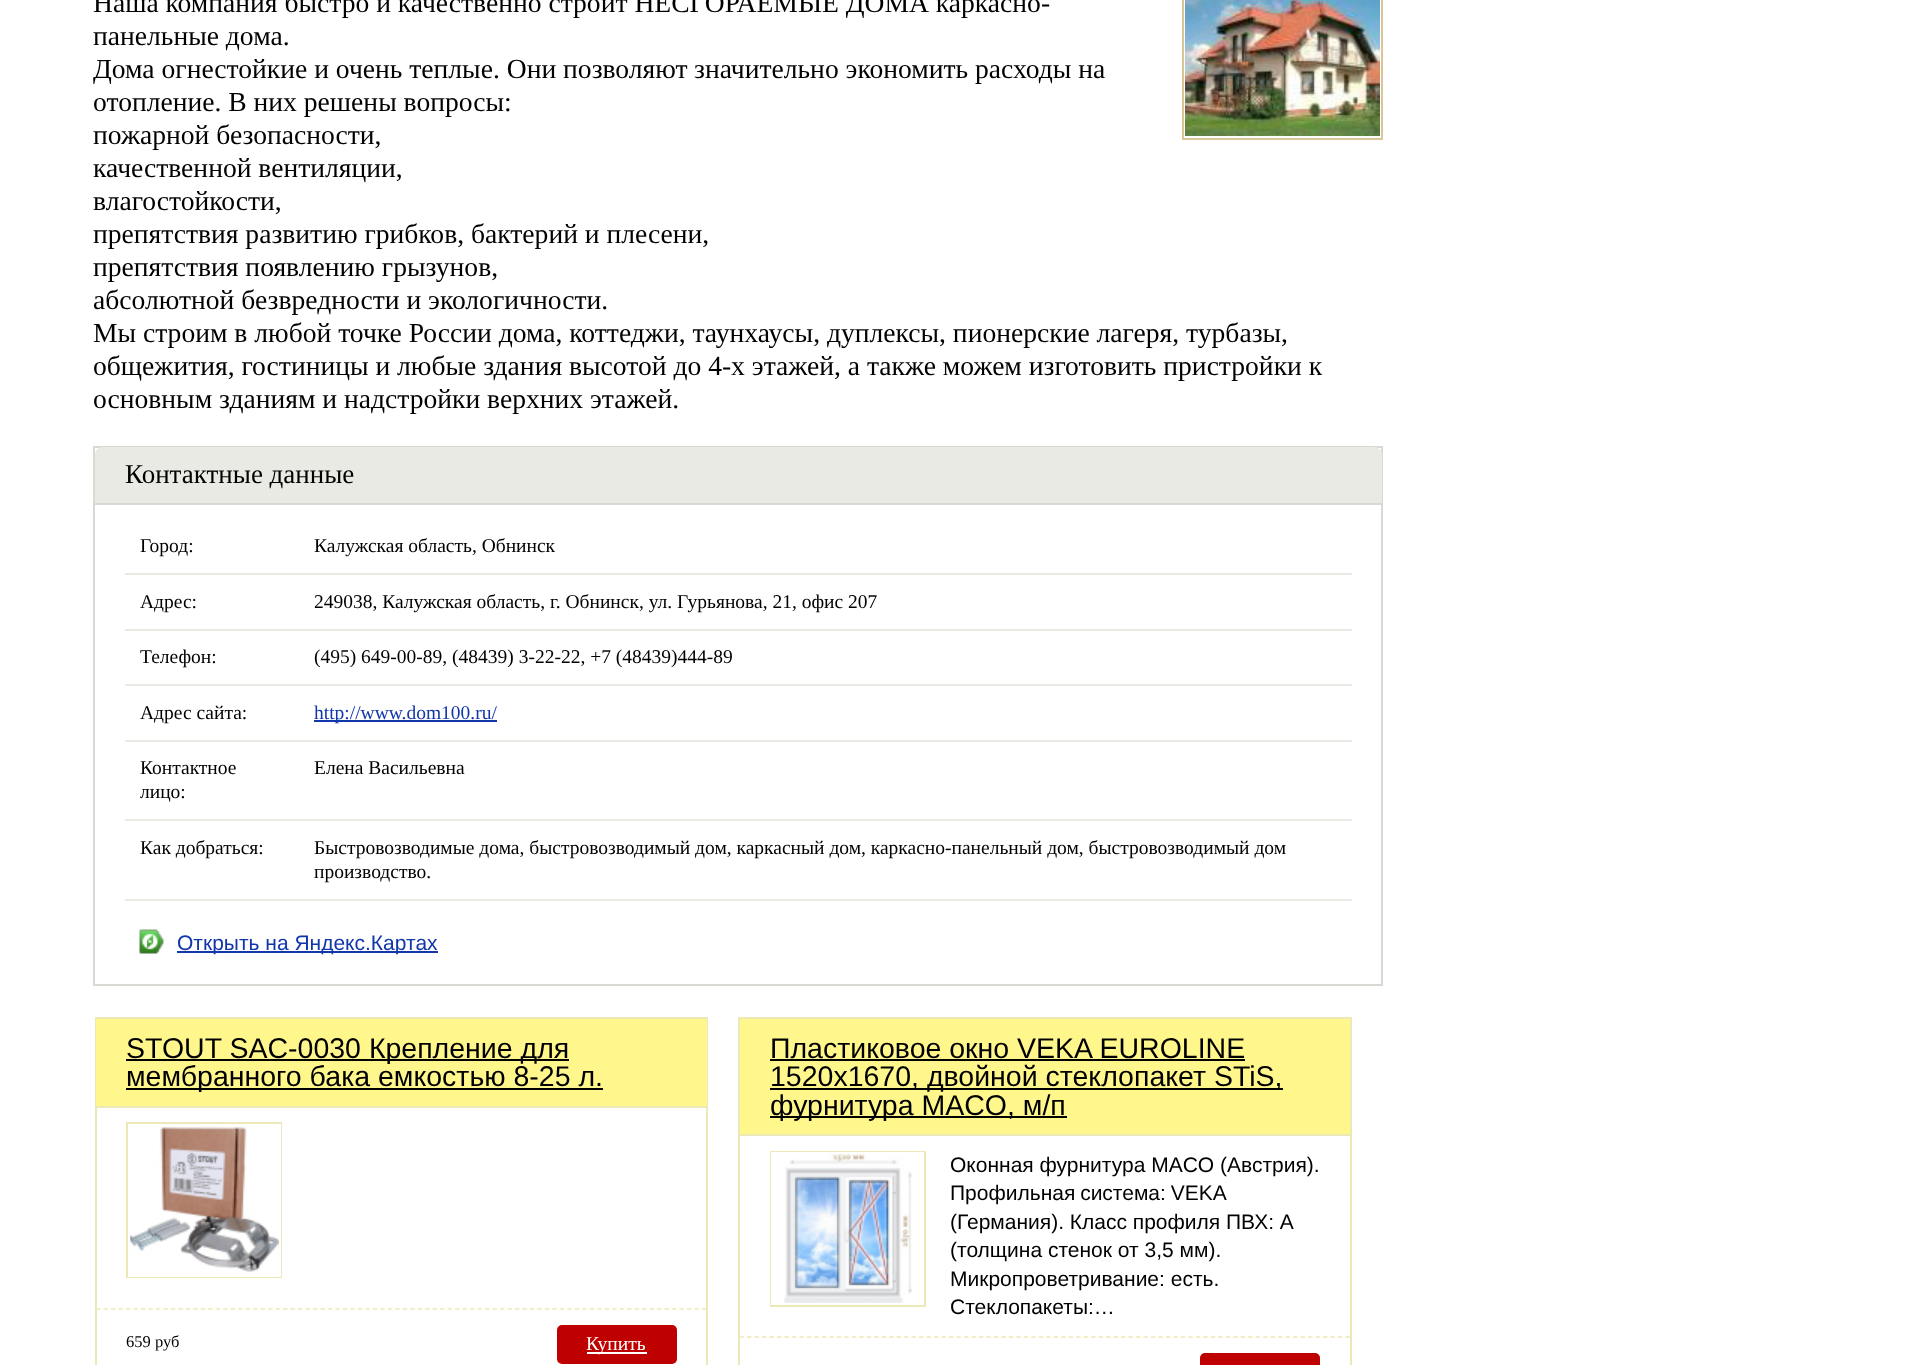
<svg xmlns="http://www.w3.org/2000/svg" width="1910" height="1365">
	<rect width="100%" height="100%" fill="#FFFFFF" />
	<rect x="1183" y="-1" width="199" height="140" fill="none" stroke="#DAC596" stroke-width="2" />
	<image x="1185" y="0" width="195" height="136" href="assets/img1.png" />
	<g font-family="Liberation Serif" font-size="27.6" fill="#000000">
		<text x="93" y="12">Наша компания быстро и качественно строит НЕСГОРАЕМЫЕ ДОМА каркасно-</text>
		<text x="93" y="45">панельные дома.</text>
		<text x="93" y="78">Дома огнестойкие и очень теплые. Они позволяют</text>
		<text x="694" y="78">значительно экономить расходы на</text>
		<text x="93" y="111">отопление. В них решены вопросы:</text>
		<text x="93" y="144">пожарной безопасности,</text>
		<text x="93" y="177">качественной вентиляции,</text>
		<text x="93" y="210">влагостойкости,</text>
		<text x="93" y="243">препятствия развитию грибков, бактерий и плесени,</text>
		<text x="93" y="276">препятствия появлению грызунов,</text>
		<text x="93" y="309">абсолютной безвредности и экологичности.</text>
		<text x="93" y="342">Мы строим в любой точке России дома, коттеджи, таунхаусы, дуплексы, пионерские лагеря, турбазы,</text>
		<text x="93" y="375">общежития, гостиницы и любые здания высотой до 4-х этажей, а также можем изготовить пристройки к</text>
		<text x="93" y="408">основным зданиям и надстройки верхних этажей.</text>
	</g>
	<rect x="94" y="447" width="1288" height="538" fill="none" stroke="#D9D9D3" stroke-width="2" />
	<path d="M103 447H1374C1378.5 447 1382 450.5 1382 455V504H95V455C95 450.5 98.5 447 103 447Z" fill="#EAEAE4" />
	<rect x="95" y="503" width="1287" height="2" fill="#D9D9D3" />
	<text x="125" y="483" font-family="Liberation Serif" font-size="27" fill="#000000">Контактные данные</text>
	<rect x="125" y="573" width="1227" height="2" fill="#EAEAE4" />
	<g font-family="Liberation Serif" font-size="19.5" fill="#000000">
		<text x="140" y="552">Город:</text>
		<text x="314" y="552">Калужская область, Обнинск</text>
	</g>
	<rect x="125" y="629" width="1227" height="2" fill="#EAEAE4" />
	<g font-family="Liberation Serif" font-size="19.5" fill="#000000">
		<text x="140" y="608">Адрес:</text>
		<text x="314" y="608">249038, Калужская область, г. Обнинск, ул. Гурьянова, 21, офис 207</text>
	</g>
	<rect x="125" y="684" width="1227" height="2" fill="#EAEAE4" />
	<g font-family="Liberation Serif" font-size="19.5" fill="#000000">
		<text x="140" y="663">Телефон:</text>
		<text x="314" y="663">(495) 649-00-89, (48439) 3-22-22, +7 (48439)444-89</text>
	</g>
	<rect x="125" y="740" width="1227" height="2" fill="#EAEAE4" />
	<text x="140" y="719" font-family="Liberation Serif" font-size="19.5" fill="#000000">Адрес сайта:</text>
	<rect x="314" y="720" width="183" height="2" fill="#1237AA" />
	<text x="314" y="719" font-family="Liberation Serif" font-size="19.5" fill="#1237AA">http://www.dom100.ru/</text>
	<rect x="125" y="819" width="1227" height="2" fill="#EAEAE4" />
	<g font-family="Liberation Serif" font-size="19.5" fill="#000000">
		<text x="140" y="774">Контактное</text>
		<text x="140" y="798">лицо:</text>
		<text x="314" y="774">Елена Васильевна</text>
	</g>
	<rect x="125" y="899" width="1227" height="2" fill="#EAEAE4" />
	<g font-family="Liberation Serif" font-size="19.5" fill="#000000">
		<text x="140" y="854">Как добраться:</text>
		<text x="314" y="854">Быстровозводимые дома, быстровозводимый дом, каркасный дом, каркасно-панельный дом, быстровозводимый дом</text>
		<text x="314" y="878">производство.</text>
	</g>
	<image x="139" y="929" width="25" height="25" href="assets/img2.png" />
	<rect x="177" y="951" width="261" height="2" fill="#1237AA" />
	<text x="177" y="950" font-family="Liberation Sans" font-size="21" fill="#1237AA">Открыть на Яндекс.Картах</text>
	<rect x="96" y="1018" width="611" height="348" fill="none" stroke="#EDE9B6" stroke-width="2" />
	<rect x="96" y="1019" width="611" height="87" fill="#FFF78C" />
	<rect x="96" y="1106" width="611" height="2" fill="#EDE9B6" />
	<rect x="126" y="1059" width="443" height="2" fill="#000000" />
	<text x="126" y="1058" font-family="Liberation Sans" font-size="28.5" fill="#000000">STOUT SAC-0030 Крепление для</text>
	<rect x="126" y="1088" width="477" height="2" fill="#000000" />
	<text x="126" y="1086" font-family="Liberation Sans" font-size="28.5" fill="#000000">мембранного бака емкостью 8-25 л.</text>
	<image x="130" y="1127" width="149" height="145" href="assets/img3.png" />
	<rect x="127" y="1123" width="154" height="154" fill="none" stroke="#EDE9B6" stroke-width="2" />
	<rect x="129" y="1125" width="151" height="151" fill="none" stroke="#FFFFFF" stroke-width="2" />
	<path d="M96 1309H706.5" fill="none" stroke="#EDE9B6" stroke-width="1.5" stroke-dasharray="4.5 2.98" />
	<text x="126" y="1347" font-family="Liberation Serif" font-size="16.5" fill="#000000">659 руб</text>
	<rect x="557" y="1325" width="120" height="39" rx="5" fill="#BF0000" />
	<rect x="587" y="1352" width="60" height="2" fill="#FFFFFF" />
	<text x="586" y="1350" font-family="Liberation Serif" font-size="19.5" fill="#FFFFFF">Купить</text>
	<rect x="739" y="1018" width="612" height="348" fill="none" stroke="#EDE9B6" stroke-width="2" />
	<rect x="740" y="1019" width="610" height="115" fill="#FFF78C" />
	<rect x="740" y="1134" width="610" height="2" fill="#EDE9B6" />
	<text x="770" y="1058" font-family="Liberation Sans" font-size="28.5" fill="#000000">Пластиковое окно VEKA EUROLINE</text>
	<rect x="770" y="1059" width="475" height="2" fill="#000000" />
	<rect x="770" y="1088" width="513" height="2" fill="#000000" />
	<text x="770" y="1086" font-family="Liberation Sans" font-size="28.5" fill="#000000">1520х1670, двойной стеклопакет STiS,</text>
	<rect x="770" y="1116" width="297" height="2" fill="#000000" />
	<text x="770" y="1115" font-family="Liberation Sans" font-size="28.5" fill="#000000">фурнитура MACO, м/п</text>
	<image x="784" y="1154" width="128" height="149" href="assets/img4.png" />
	<rect x="771" y="1152" width="154" height="154" fill="none" stroke="#EDE9B6" stroke-width="2" />
	<rect x="772" y="1153" width="151" height="151" fill="none" stroke="#FFFFFF" stroke-width="2" />
	<g font-family="Liberation Sans" font-size="21" fill="#000000">
		<text x="950" y="1172">Оконная фурнитура MACO (Австрия).</text>
		<text x="950" y="1200" word-spacing="-1">Профильная система: VEKA</text>
		<text x="950" y="1229">(Германия). Класс профиля ПВХ: А</text>
		<text x="950" y="1257">(толщина стенок от 3,5 мм).</text>
		<text x="950" y="1286">Микропроветривание: есть.</text>
		<text x="950" y="1314">Стеклопакеты:…</text>
	</g>
	<path d="M739.5 1337H1350" fill="none" stroke="#EDE9B6" stroke-width="1.5" stroke-dasharray="4.5 2.98" />
	<rect x="1200" y="1353" width="120" height="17" rx="5" fill="#BF0000" />
</svg>
